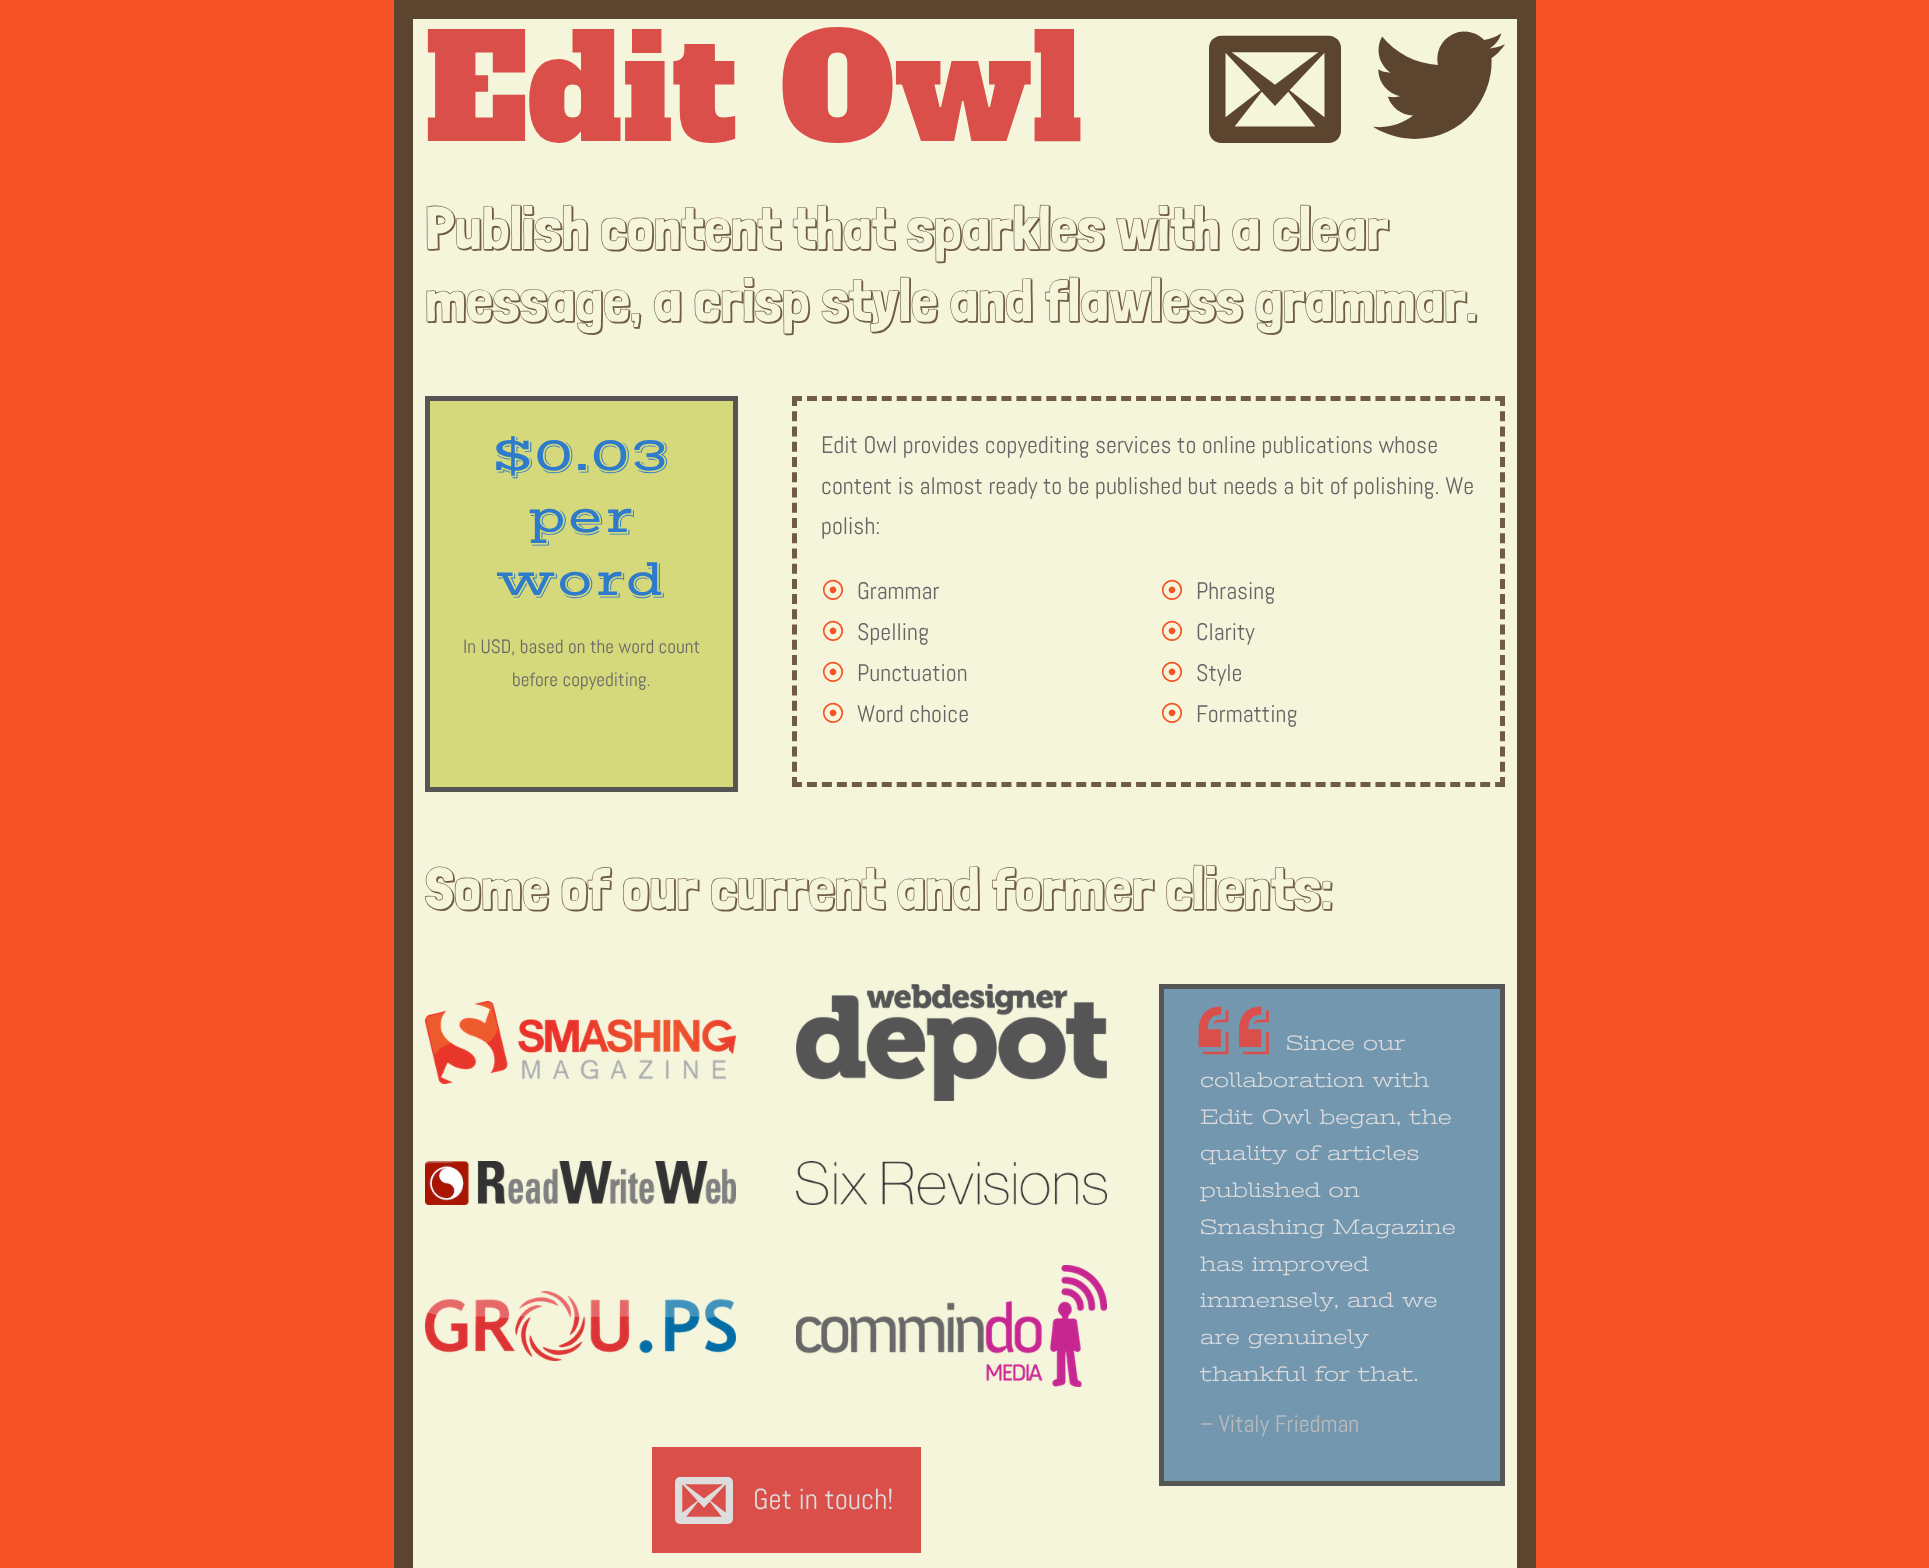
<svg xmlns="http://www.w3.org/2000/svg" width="1929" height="1568">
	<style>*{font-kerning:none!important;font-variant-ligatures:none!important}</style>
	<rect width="100%" height="100%" fill="#F55326" />
	<rect x="403.5" y="9.5" width="1123" height="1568" fill="#F5F5DC" stroke="#5C452E" stroke-width="19" />
	<text x="425" y="141" font-family="Alfa Slab One" font-size="144" fill="#DA4F49">Edit Owl</text>
	<g font-family="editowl" font-size="132" fill="#5C452E">
		<text x="1209" y="143">📧</text>
		<text x="1373" y="143">🐦</text>
	</g>
	<g font-family="Londrina Shadow" font-size="60" fill="#705B46">
		<text x="425" y="249">Publish content that sparkles with a clear</text>
		<text x="425" y="321">message, a crisp style and flawless grammar.</text>
	</g>
	<rect x="427.5" y="398.5" width="308" height="391" fill="#D5D97C" stroke="#555555" stroke-width="5" />
	<g font-family="Vast Shadow" font-size="48" fill="#2E7BCC">
		<text x="492" y="470">$0.03</text>
		<text x="527" y="532">per</text>
		<text x="496" y="595">word</text>
	</g>
	<g font-family="Abel" font-size="19.25" fill="#666666">
		<text x="463" y="653">In USD, based on the word count</text>
		<text x="512" y="686">before copyediting.</text>
	</g>
	<path d="M792 398.5H1505" fill="none" stroke="#705B46" stroke-width="5" stroke-dasharray="10 4.96" />
	<path d="M1502.5 396V787" fill="none" stroke="#705B46" stroke-width="5" stroke-dasharray="10 5.24" />
	<path d="M792 784.5H1505" fill="none" stroke="#705B46" stroke-width="5" stroke-dasharray="10 4.96" />
	<path d="M794.5 396V787" fill="none" stroke="#705B46" stroke-width="5" stroke-dasharray="10 5.24" />
	<g font-family="Abel" font-size="24" fill="#666666">
		<text x="821" y="453">Edit Owl provides copyediting services to online publications whose</text>
		<text x="821" y="494">content is almost ready to be published but needs a bit of polishing. We</text>
		<text x="821" y="534">polish:</text>
	</g>
	<text x="821" y="599" font-family="IPAGothic" font-size="24" fill="#F55326">⦿</text>
	<text x="857" y="599" font-family="Abel" font-size="24" fill="#666666">Grammar</text>
	<text x="1160" y="599" font-family="IPAGothic" font-size="24" fill="#F55326">⦿</text>
	<text x="1196" y="599" font-family="Abel" font-size="24" fill="#666666">Phrasing</text>
	<text x="821" y="640" font-family="IPAGothic" font-size="24" fill="#F55326">⦿</text>
	<text x="857" y="640" font-family="Abel" font-size="24" fill="#666666">Spelling</text>
	<text x="1160" y="640" font-family="IPAGothic" font-size="24" fill="#F55326">⦿</text>
	<text x="1196" y="640" font-family="Abel" font-size="24" fill="#666666">Clarity</text>
	<text x="821" y="681" font-family="IPAGothic" font-size="24" fill="#F55326">⦿</text>
	<text x="857" y="681" font-family="Abel" font-size="24" fill="#666666">Punctuation</text>
	<text x="1160" y="681" font-family="IPAGothic" font-size="24" fill="#F55326">⦿</text>
	<text x="1196" y="681" font-family="Abel" font-size="24" fill="#666666">Style</text>
	<text x="821" y="722" font-family="IPAGothic" font-size="24" fill="#F55326">⦿</text>
	<text x="857" y="722" font-family="Abel" font-size="24" fill="#666666">Word choice</text>
	<text x="1160" y="722" font-family="IPAGothic" font-size="24" fill="#F55326">⦿</text>
	<text x="1196" y="722" font-family="Abel" font-size="24" fill="#666666">Formatting</text>
	<text x="425" y="909" font-family="Londrina Shadow" font-size="60" fill="#705B46">Some of our current and former clients:</text>
	<image x="425" y="1001" width="311" height="83" href="assets/img1.png" />
	<image x="796" y="984" width="311" height="117" href="assets/img2.png" />
	<image x="425" y="1161" width="311" height="44" href="assets/img3.png" />
	<image x="796" y="1161" width="311" height="44" href="assets/img4.png" />
	<image x="425" y="1291" width="311" height="70" href="assets/img5.png" />
	<image x="796" y="1265" width="311" height="122" href="assets/img6.png" />
	<rect x="1161.5" y="986.5" width="341" height="497" fill="#7497B0" stroke="#555555" stroke-width="5" />
	<text x="1188" y="1094" font-family="Vast Shadow" font-size="140" fill="#DA4F49">“</text>
	<g font-family="Stint Ultra Expanded" font-size="21.6" fill="#DDDDDD">
		<text x="1286" y="1050">Since our</text>
		<text x="1200" y="1087">collaboration with</text>
		<text x="1200" y="1124">Edit Owl began, the</text>
		<text x="1200" y="1160">quality of articles</text>
		<text x="1200" y="1197">published on</text>
		<text x="1200" y="1234">Smashing Magazine</text>
		<text x="1200" y="1271">has improved</text>
		<text x="1200" y="1307">immensely, and we</text>
		<text x="1200" y="1344">are genuinely</text>
		<text x="1200" y="1381">thankful for that.</text>
	</g>
	<text x="1200" y="1432" font-family="Abel" font-size="24" fill="#BBBBBB">– Vitaly Friedman</text>
	<rect x="652" y="1447" width="269" height="106" fill="#DA4F49" />
	<text x="675" y="1524" font-family="editowl" font-size="58" fill="#DDDDDD">📧</text>
	<text x="753" y="1509" font-family="Abel" font-size="29" fill="#DDDDDD">Get in touch!</text>
</svg>
